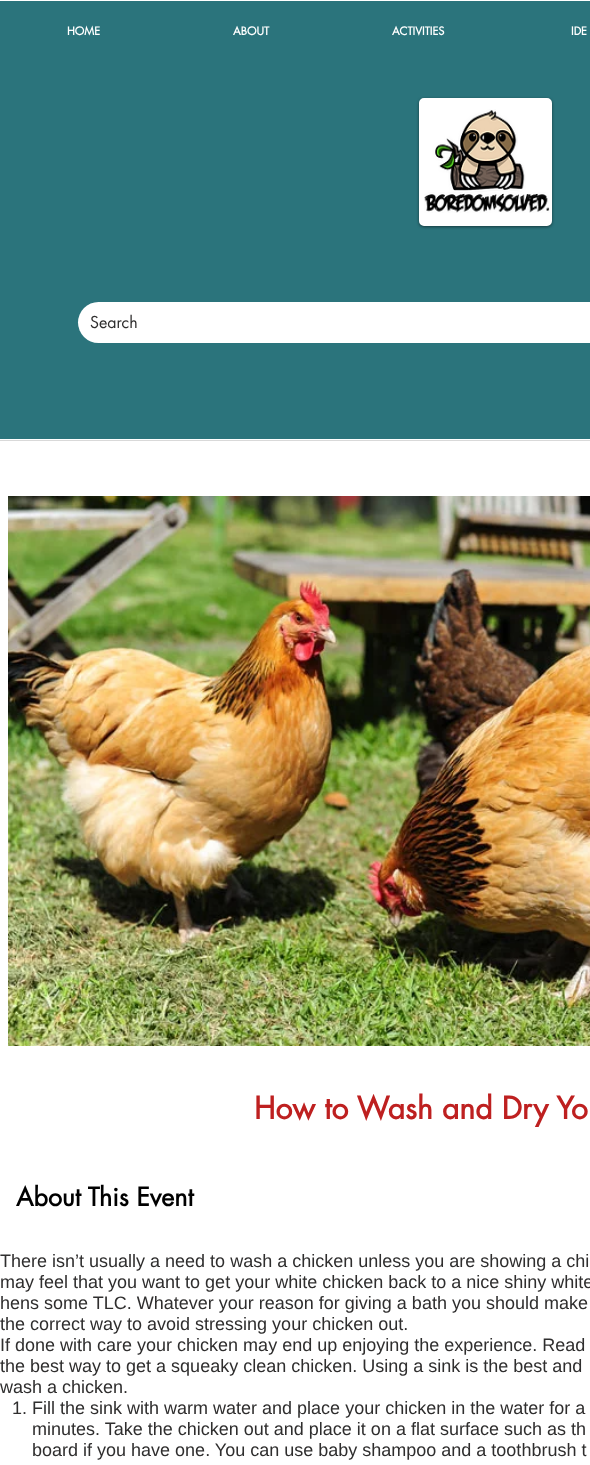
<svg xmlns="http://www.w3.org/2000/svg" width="590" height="1465">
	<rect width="100%" height="100%" fill="#FFFFFF" />
	<rect x="-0.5" y="-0.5" width="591" height="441" fill="none" stroke="#D9D9D9" />
	<rect x="0" y="1" width="590" height="438" fill="#2B747C" />
	<g font-family="futura" font-size="11" font-weight="700" fill="#FFFFFF">
		<text x="67" y="35">HOME</text>
		<text x="233" y="35">ABOUT</text>
		<text x="392" y="35">ACTIVITIES</text>
		<text x="571" y="35">IDE</text>
	</g>
	<rect x="419" y="99" width="133" height="128" rx="5" fill="#000000" fill-opacity="0.5" filter="blur(1.5px)" />
	<rect x="420" y="99" width="131" height="126" rx="4" fill="#FFFFFF" stroke="#FFFFFF" stroke-width="2" />
	<image x="424" y="109" width="126" height="104" href="assets/img1.png" />
	<rect x="78" y="302" width="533" height="41" rx="20.5" fill="#FFFFFF" />
	<text x="90" y="328" font-family="futura" font-size="16" fill="#2F2E2E">Search</text>
	<image x="8" y="496" width="582" height="550" href="assets/img2.png" />
	<text x="254" y="1119" font-family="futura" font-size="30" font-weight="700" fill="#BE2020">How to Wash and Dry Yo</text>
	<text x="16" y="1206" font-family="futura" font-size="25" font-weight="700" fill="#000000">About This Event</text>
	<g font-family="Liberation Sans" font-size="18" fill="#2F2E2E">
		<text x="0" y="1267">There isn’t usually a need to wash a chicken unless you are showing a chi</text>
		<text x="0" y="1288">may feel that you want to get your white chicken back to a nice shiny white</text>
		<text x="0" y="1309">hens some TLC. Whatever your reason for giving a bath you should make</text>
		<text x="0" y="1330">the correct way to avoid stressing your chicken out.</text>
		<text x="0" y="1351">If done with care your chicken may end up enjoying the experience. Read</text>
		<text x="0" y="1372">the best way to get a squeaky clean chicken. Using a sink is the best and</text>
		<text x="0" y="1393">wash a chicken.</text>
		<text x="12" y="1414">1. Fill the sink with warm water and place your chicken in the water for a</text>
		<text x="32" y="1435">minutes. Take the chicken out and place it on a flat surface such as th</text>
		<text x="32" y="1456">board if you have one. You can use baby shampoo and a toothbrush t</text>
	</g>
</svg>
